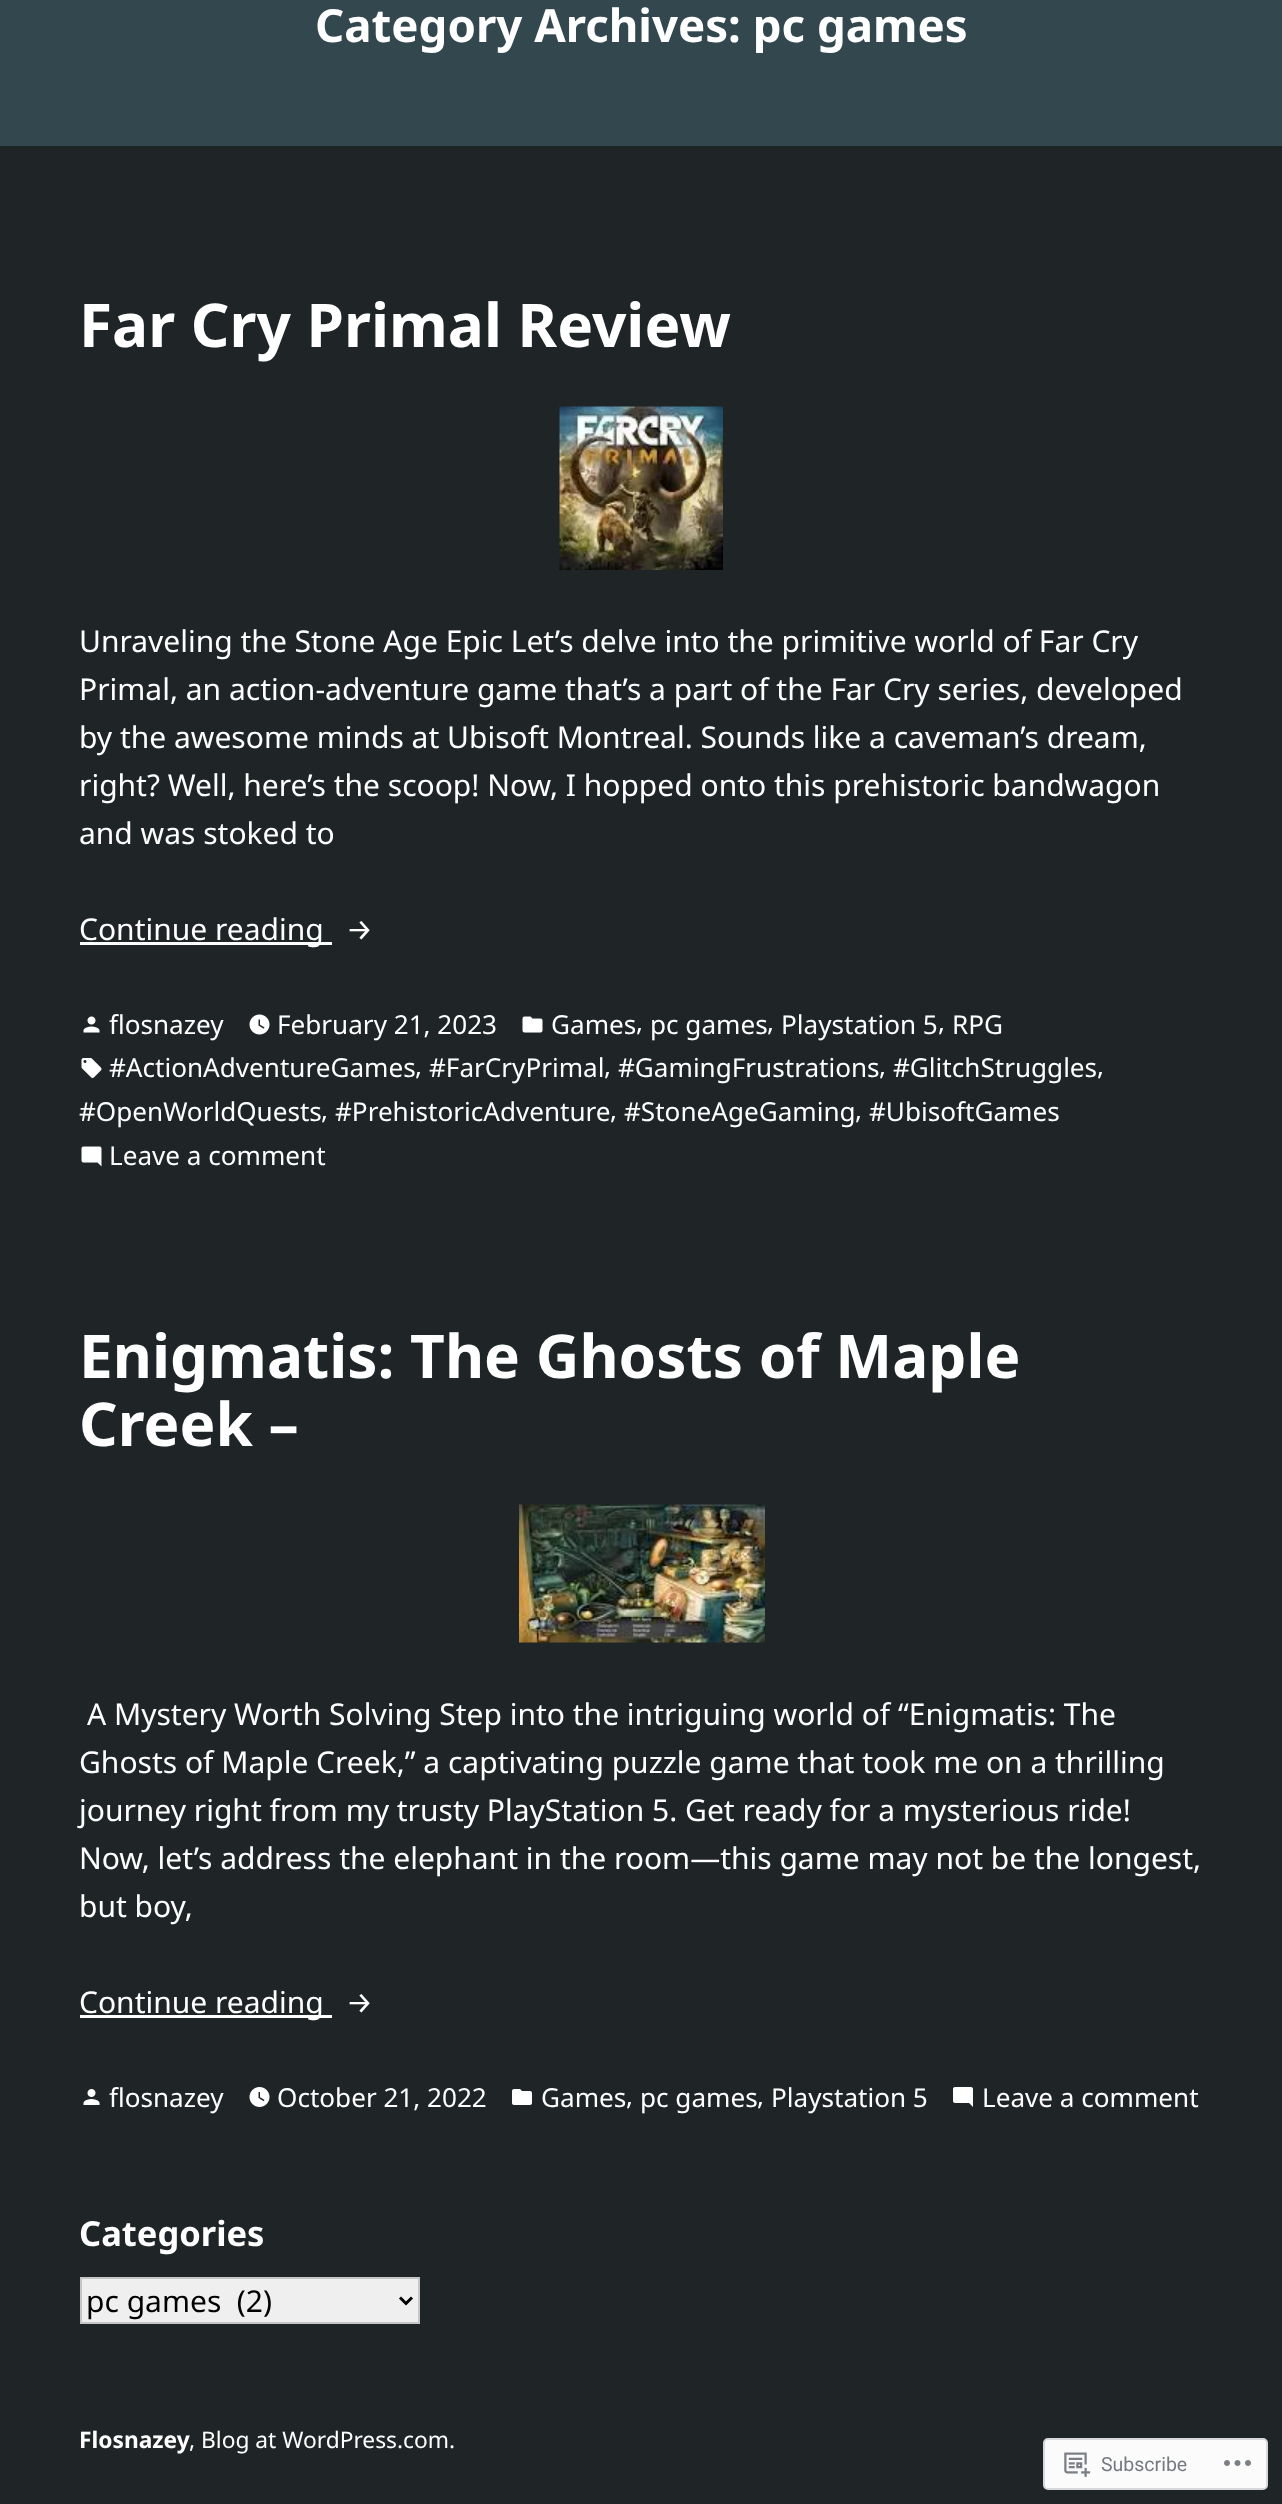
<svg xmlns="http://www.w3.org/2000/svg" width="1282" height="2504">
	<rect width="100%" height="100%" fill="#1F2527" />
	<rect x="0" y="0" width="1282" height="146" fill="#33474E" />
	<text x="315" y="42" font-family="Noto Sans" font-size="45.6" font-weight="700" fill="#FFFFFF">Category Archives: pc games</text>
	<text x="79" y="347" font-family="Noto Sans" font-size="60.3" font-weight="700" fill="#FFFFFF">Far Cry Primal Review</text>
	<image x="559" y="406" width="164" height="164" href="assets/img1.png" />
	<g font-family="Noto Sans" font-size="30" fill="#FFFFFF">
		<text x="79" y="652">Unraveling the Stone Age Epic Let’s delve into the primitive world of Far Cry</text>
		<text x="79" y="700">Primal, an action-adventure game that’s a part of the Far Cry series, developed</text>
		<text x="79" y="748">by the awesome minds at Ubisoft Montreal. Sounds like a caveman’s dream,</text>
		<text x="79" y="796">right? Well, here’s the scoop! Now, I hopped onto this prehistoric bandwagon</text>
		<text x="79" y="844">and was stoked to</text>
	</g>
	<rect x="80" y="942" width="252" height="3" fill="#FFFFFF" />
	<text x="79" y="940" font-family="Noto Sans" font-size="30" fill="#FFFFFF">Continue reading</text>
	<text x="346" y="940" font-family="Fira Sans" font-size="30" fill="#FFFFFF">→</text>
	<image x="83" y="1016" width="17" height="17" href="assets/img2.png" />
	<text x="109" y="1034" font-family="Noto Sans" font-size="26.1" fill="#FFFFFF">flosnazey</text>
	<image x="249" y="1014" width="21" height="21" href="assets/img3.png" />
	<text x="277" y="1034" font-family="Noto Sans" font-size="26.1" fill="#FFFFFF">February 21, 2023</text>
	<image x="522" y="1016" width="21" height="17" href="assets/img4.png" />
	<g font-family="Noto Sans" font-size="26.1" fill="#FFFFFF">
		<text x="551" y="1034">Games</text>
		<text x="636" y="1031">,</text>
		<text x="650" y="1034">pc games</text>
		<text x="767" y="1031">,</text>
		<text x="781" y="1034">Playstation 5</text>
		<text x="938" y="1031">,</text>
		<text x="952" y="1034">RPG</text>
	</g>
	<image x="81" y="1058" width="21" height="20" href="assets/img5.png" />
	<g font-family="Noto Sans" font-size="26.1" fill="#FFFFFF">
		<text x="109" y="1077">#ActionAdventureGames</text>
		<text x="415" y="1075">,</text>
		<text x="429" y="1077">#FarCryPrimal</text>
		<text x="604" y="1075">,</text>
		<text x="618" y="1077">#GamingFrustrations</text>
		<text x="879" y="1075">,</text>
		<text x="893" y="1077">#GlitchStruggles</text>
		<text x="1097" y="1075">,</text>
		<text x="79" y="1121">#OpenWorldQuests</text>
		<text x="321" y="1119">,</text>
		<text x="335" y="1121">#PrehistoricAdventure</text>
		<text x="610" y="1119">,</text>
		<text x="624" y="1121">#StoneAgeGaming</text>
		<text x="855" y="1119">,</text>
		<text x="869" y="1121">#UbisoftGames</text>
	</g>
	<image x="81" y="1146" width="21" height="21" href="assets/img6.png" />
	<text x="109" y="1165" font-family="Noto Sans" font-size="26.1" fill="#FFFFFF">Leave a comment</text>
	<g font-family="Noto Sans" font-size="60.3" font-weight="700" fill="#FFFFFF">
		<text x="79" y="1378">Enigmatis: The Ghosts of Maple</text>
		<text x="79" y="1446">Creek –</text>
	</g>
	<image x="519" y="1504" width="246" height="139" href="assets/img7.png" />
	<g font-family="Noto Sans" font-size="30" fill="#FFFFFF">
		<text x="87" y="1725">A Mystery Worth Solving Step into the intriguing world of “Enigmatis: The</text>
		<text x="79" y="1773">Ghosts of Maple Creek,” a captivating puzzle game that took me on a thrilling</text>
		<text x="79" y="1821">journey right from my trusty PlayStation 5. Get ready for a mysterious ride!</text>
		<text x="79" y="1869">Now, let’s address the elephant in the room—this game may not be the longest,</text>
		<text x="79" y="1917">but boy,</text>
	</g>
	<rect x="80" y="2015" width="252" height="3" fill="#FFFFFF" />
	<text x="79" y="2013" font-family="Noto Sans" font-size="30" fill="#FFFFFF">Continue reading</text>
	<text x="346" y="2013" font-family="Fira Sans" font-size="30" fill="#FFFFFF">→</text>
	<image x="83" y="2089" width="17" height="16" href="assets/img8.png" />
	<text x="109" y="2107" font-family="Noto Sans" font-size="26.1" fill="#FFFFFF">flosnazey</text>
	<image x="249" y="2087" width="21" height="20" href="assets/img9.png" />
	<text x="277" y="2107" font-family="Noto Sans" font-size="26.1" fill="#FFFFFF">October 21, 2022</text>
	<image x="512" y="2089" width="20" height="16" href="assets/img10.png" />
	<g font-family="Noto Sans" font-size="26.1" fill="#FFFFFF">
		<text x="541" y="2107">Games</text>
		<text x="626" y="2105">,</text>
		<text x="640" y="2107">pc games</text>
		<text x="757" y="2105">,</text>
		<text x="771" y="2107">Playstation 5</text>
	</g>
	<image x="953" y="2087" width="20" height="20" href="assets/img11.png" />
	<text x="982" y="2107" font-family="Noto Sans" font-size="26.1" fill="#FFFFFF">Leave a comment</text>
	<text x="79" y="2246" font-family="Noto Sans" font-size="34.5" font-weight="700" fill="#FFFFFF">Categories</text>
	<rect x="81" y="2278" width="338" height="45" fill="#EFEFEF" stroke="#C5C5C5" stroke-width="2" />
	<path d="M400 2297.5L406 2303.5L412 2297.5" fill="none" stroke="#000000" stroke-width="3" />
	<text x="86" y="2312" font-family="Noto Sans" font-size="30" fill="#000000" xml:space="preserve">pc games  (2)</text>
	<text x="79" y="2448" font-family="Noto Sans" font-size="22.75" font-weight="700" fill="#FFFFFF">Flosnazey</text>
	<text x="189" y="2448" font-family="Noto Sans" font-size="22.75" fill="#FFFFFF">, Blog at WordPress.com.</text>
	<rect x="1044" y="2439" width="223" height="50" rx="4" fill="#FBFBFB" stroke="#D8D8DA" stroke-width="2" />
	<image x="1064" y="2452" width="27" height="25" href="assets/img12.png" />
	<text x="1101" y="2471" font-family="Roboto" font-size="19.5" fill="#767A80">Subscribe</text>
	<image x="1224" y="2460" width="27" height="6" href="assets/img13.png" />
</svg>
